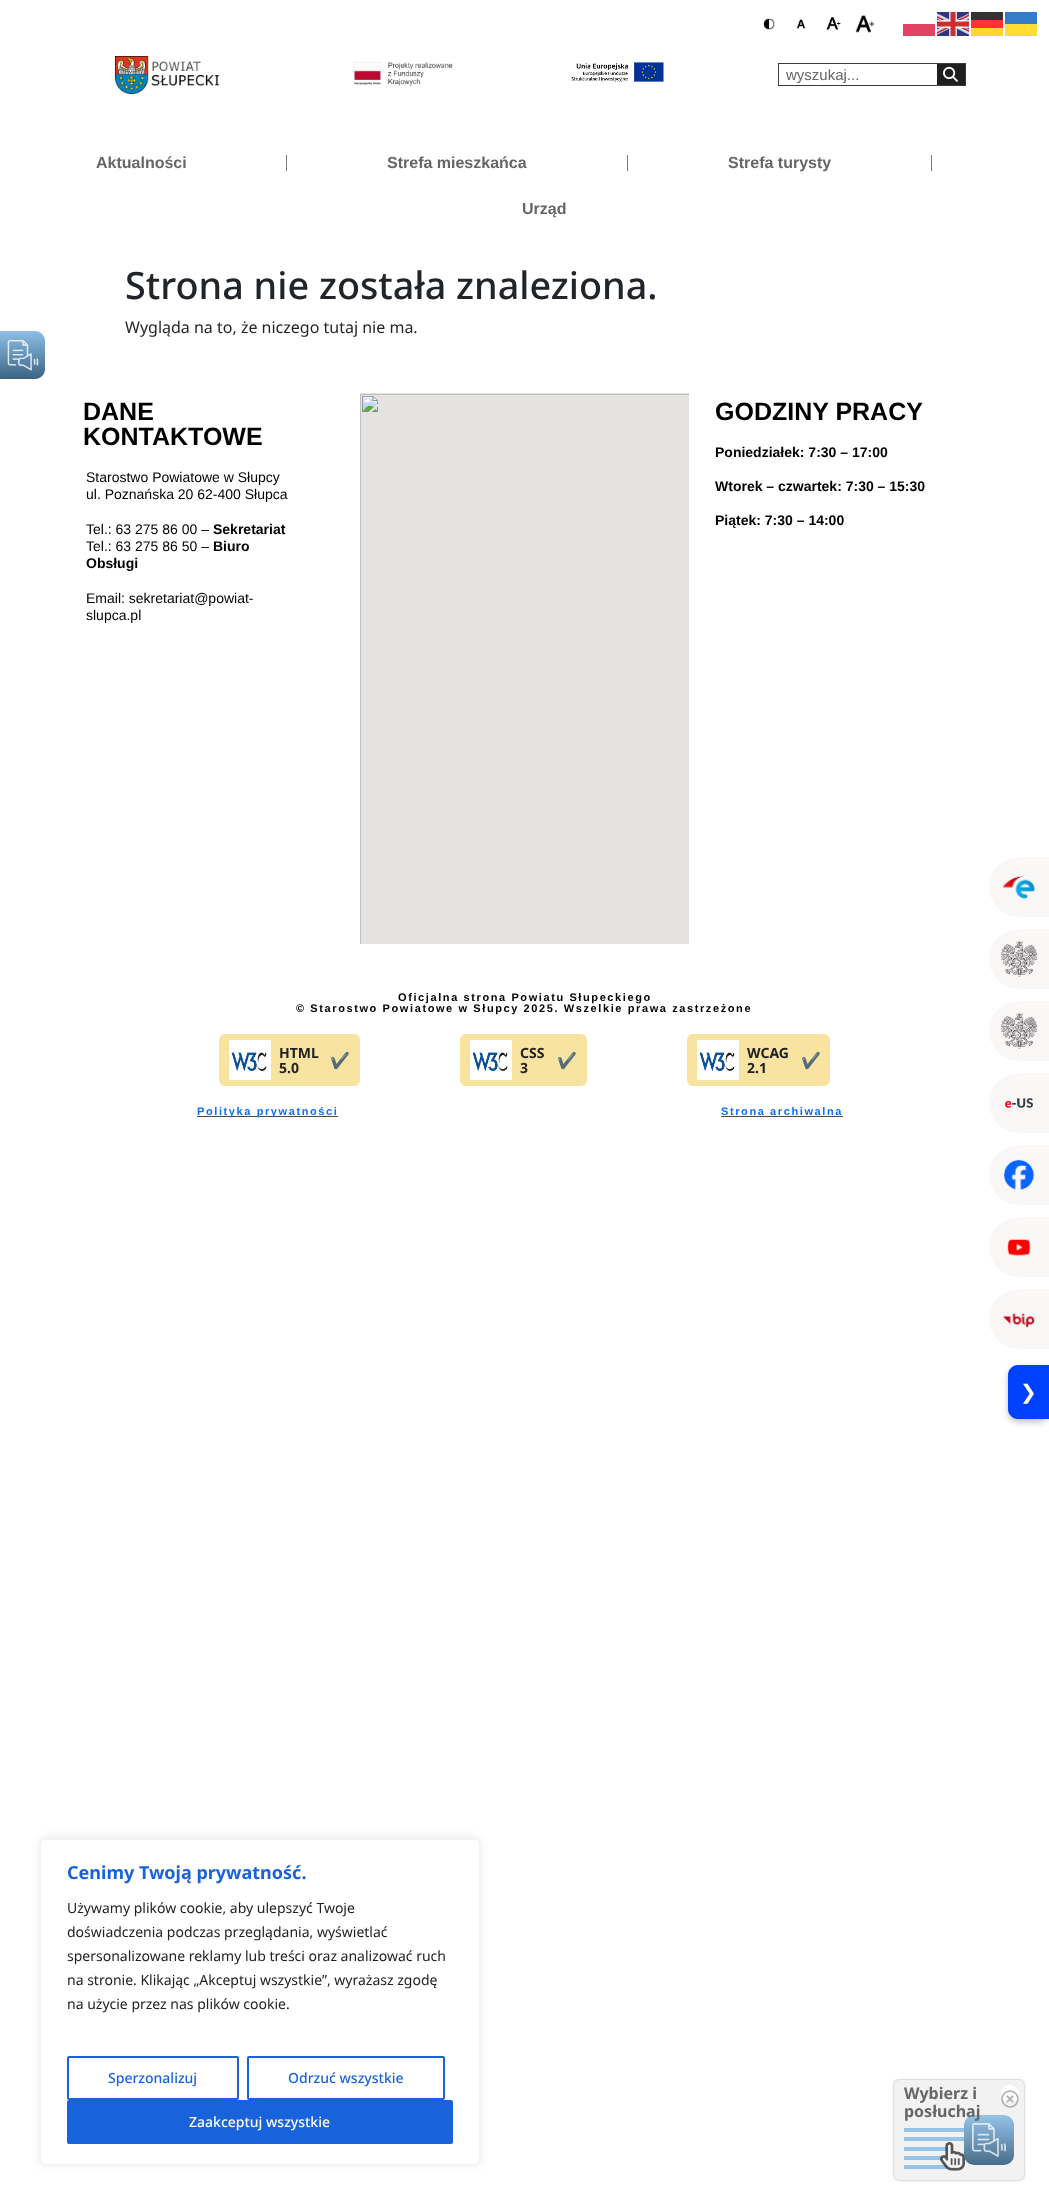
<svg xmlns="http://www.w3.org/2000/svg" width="1049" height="2205">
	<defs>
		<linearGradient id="g1" gradientUnits="userSpaceOnUse" x1="22" y1="331" x2="23" y2="379"><stop offset="0" stop-color="#8FBFE6" /><stop offset="1" stop-color="#3C6382" /></linearGradient>
		<linearGradient id="g2" gradientUnits="userSpaceOnUse" x1="989" y1="2115" x2="989" y2="2165"><stop offset="0" stop-color="#96C3E8" /><stop offset="1" stop-color="#486D8A" /></linearGradient>
	</defs>
	<rect width="100%" height="100%" fill="#FFFFFF" />
	<image x="763" y="18" width="12" height="12" href="assets/img1.png" />
	<image x="796" y="19" width="10" height="10" href="assets/img2.png" />
	<image x="826" y="17" width="15" height="13" href="assets/img3.png" />
	<image x="855" y="15" width="20" height="18" href="assets/img4.png" />
	<image x="937" y="12" width="32" height="24" href="assets/img5.png" />
	<rect x="971" y="12" width="32" height="8" fill="#333333" />
	<rect x="1005" y="12" width="32" height="12" fill="#337CC9" />
	<rect x="903" y="24" width="32" height="12" fill="#E34363" />
	<rect x="971" y="20" width="32" height="8" fill="#FF3333" />
	<rect x="1005" y="24" width="32" height="12" fill="#FFDD33" />
	<rect x="971" y="28" width="32" height="8" fill="#FFD633" />
	<image x="115" y="56" width="105" height="38" href="assets/img6.png" />
	<image x="354" y="62" width="99" height="24" href="assets/img7.png" />
	<image x="571" y="62" width="93" height="20" href="assets/img8.png" />
	<rect x="778.5" y="63.5" width="187" height="22" fill="none" stroke="#3A3A3A" />
	<text x="786" y="80" font-family="Liberation Sans" font-size="15" fill="#666666">wyszukaj...</text>
	<rect x="937" y="64" width="28" height="21" fill="#1F1F1F" />
	<image x="943" y="66" width="15" height="16" href="assets/img9.png" />
	<text x="96" y="168" font-family="Liberation Sans" font-size="16" font-weight="700" fill="#666666">Aktualności</text>
	<rect x="286" y="155" width="1" height="16" fill="#7A7A7A" />
	<text x="387" y="168" font-family="Liberation Sans" font-size="16" font-weight="700" fill="#666666">Strefa mieszkańca</text>
	<rect x="627" y="155" width="1" height="16" fill="#7A7A7A" />
	<text x="728" y="168" font-family="Liberation Sans" font-size="16" font-weight="700" fill="#666666">Strefa turysty</text>
	<rect x="931" y="155" width="1" height="16" fill="#7A7A7A" />
	<text x="522" y="214" font-family="Liberation Sans" font-size="16" font-weight="700" fill="#666666">Urząd</text>
	<path d="M1019 857H1049V917H1019C1002.5 917 989 903.5 989 887C989 870.5 1002.5 857 1019 857Z" fill="#FAF7F7" />
	<image x="1002" y="875" width="34" height="24" href="assets/img10.png" />
	<path d="M1019 929H1049V989H1019C1002.5 989 989 975.5 989 959C989 942.5 1002.5 929 1019 929Z" fill="#FAF7F7" />
	<image x="1001" y="941" width="36" height="36" href="assets/img11.png" />
	<path d="M1019 1001H1049V1061H1019C1002.5 1061 989 1047.5 989 1031C989 1014.5 1002.5 1001 1019 1001Z" fill="#FAF7F7" />
	<image x="1001" y="1013" width="36" height="36" href="assets/img12.png" />
	<path d="M1019 1073H1049V1133H1019C1002.5 1133 989 1119.5 989 1103C989 1086.5 1002.5 1073 1019 1073Z" fill="#FAF7F7" />
	<image x="1005" y="1098" width="28" height="10" href="assets/img13.png" />
	<path d="M1019 1145H1049V1205H1019C1002.5 1205 989 1191.5 989 1175C989 1158.5 1002.5 1145 1019 1145Z" fill="#FAF7F7" />
	<image x="1003" y="1159" width="32" height="32" href="assets/img14.png" />
	<path d="M1019 1217H1049V1277H1019C1002.5 1277 989 1263.5 989 1247C989 1230.5 1002.5 1217 1019 1217Z" fill="#FAF7F7" />
	<image x="1007" y="1239" width="24" height="17" href="assets/img15.png" />
	<path d="M1019 1289H1049V1349H1019C1002.5 1349 989 1335.5 989 1319C989 1302.5 1002.5 1289 1019 1289Z" fill="#FAF7F7" />
	<image x="1003" y="1313" width="32" height="15" href="assets/img16.png" />
	<rect x="1008" y="1368" width="41" height="54" rx="10" fill="#000000" fill-opacity="0.25" filter="blur(3px)" />
	<path d="M1018 1365H1049V1419H1018C1012.5 1419 1008 1414.5 1008 1409V1375C1008 1369.5 1012.5 1365 1018 1365Z" fill="#0040FF" />
	<text x="1020" y="1399" font-family="DejaVu Sans" font-size="20" fill="#FFFFFF">❯</text>
	<text x="125" y="299" font-family="Noto Sans" font-size="37.75" font-weight="500" fill="#212529">Strona nie została znaleziona.</text>
	<text x="125" y="333" font-family="Noto Sans" font-size="16" fill="#212529">Wygląda na to, że niczego tutaj nie ma.</text>
	<path d="M0 331H35C40.5 331 45 335.5 45 341V369C45 374.5 40.5 379 35 379H0Z" fill="url(#g1)" />
	<image x="7" y="340" width="32" height="31" href="assets/img17.png" />
	<g font-family="Liberation Sans" font-size="25" font-weight="700" fill="#000000">
		<text x="83" y="420">DANE</text>
		<text x="83" y="445">KONTAKTOWE</text>
	</g>
	<g font-family="Liberation Sans" font-size="14" fill="#000000">
		<text x="86" y="482">Starostwo Powiatowe w Słupcy</text>
		<text x="86" y="499">ul. Poznańska 20 62-400 Słupca</text>
		<text x="86" y="534">Tel.: 63 275 86 00 –</text>
	</g>
	<text x="213" y="534" font-family="Liberation Sans" font-size="14" font-weight="700" fill="#000000">Sekretariat</text>
	<text x="86" y="551" font-family="Liberation Sans" font-size="14" fill="#000000">Tel.: 63 275 86 50 –</text>
	<g font-family="Liberation Sans" font-size="14" font-weight="700" fill="#000000">
		<text x="213" y="551">Biuro</text>
		<text x="86" y="568">Obsługi</text>
	</g>
	<g font-family="Liberation Sans" font-size="14" fill="#000000">
		<text x="86" y="603">Email: sekretariat@powiat-</text>
		<text x="86" y="620">slupca.pl</text>
	</g>
	<image x="360" y="393" width="329" height="551" href="assets/img18.png" />
	<text x="715" y="420" font-family="Liberation Sans" font-size="25" font-weight="700" fill="#000000">GODZINY PRACY</text>
	<g font-family="Liberation Sans" font-size="14" font-weight="700" fill="#000000">
		<text x="715" y="457">Poniedziałek: 7:30 – 17:00</text>
		<text x="715" y="491">Wtorek – czwartek: 7:30 – 15:30</text>
		<text x="715" y="525">Piątek: 7:30 – 14:00</text>
	</g>
	<g font-family="Liberation Sans" font-size="11" font-weight="700" letter-spacing="1.6" fill="#000000">
		<text x="398" y="1001">Oficjalna strona Powiatu Słupeckiego</text>
		<text x="296" y="1012">© Starostwo Powiatowe w Słupcy 2025. Wszelkie prawa zastrzeżone</text>
	</g>
	<rect x="219" y="1034" width="141" height="52" rx="6" fill="#F8E3A0" />
	<image x="229" y="1040" width="42" height="40" href="assets/img19.png" />
	<g font-family="Noto Sans" font-size="14" font-weight="700" fill="#222222">
		<text x="279" y="1058">HTML</text>
		<text x="279" y="1073">5.0</text>
	</g>
	<text x="330" y="1066" font-family="Noto Color Emoji" font-size="16" font-weight="700" fill="#C62828">✔</text>
	<rect x="460" y="1034" width="127" height="52" rx="6" fill="#F8E3A0" />
	<image x="470" y="1040" width="42" height="40" href="assets/img19.png" />
	<g font-family="Noto Sans" font-size="14" font-weight="700" fill="#222222">
		<text x="520" y="1058">CSS</text>
		<text x="520" y="1073">3</text>
	</g>
	<text x="557" y="1066" font-family="Noto Color Emoji" font-size="16" font-weight="700" fill="#C62828">✔</text>
	<rect x="687" y="1034" width="143" height="52" rx="6" fill="#F8E3A0" />
	<image x="697" y="1040" width="42" height="40" href="assets/img20.png" />
	<g font-family="Noto Sans" font-size="14" font-weight="700" fill="#222222">
		<text x="747" y="1058">WCAG</text>
		<text x="747" y="1073">2.1</text>
	</g>
	<text x="801" y="1066" font-family="Noto Color Emoji" font-size="16" font-weight="700" fill="#C62828">✔</text>
	<rect x="197" y="1116" width="141" height="1" fill="#4A494D" />
	<g font-family="Liberation Sans" font-size="11" font-weight="700" letter-spacing="1.6" fill="#0D6EFD">
		<text x="197" y="1115">Polityka prywatności</text>
		<text x="721" y="1115">Strona archiwalna</text>
	</g>
	<rect x="721" y="1116" width="122" height="1" fill="#4A494D" />
	<rect x="40" y="1838" width="440" height="326" rx="6" fill="#ACABAB" fill-opacity="0.3" filter="blur(5px)" />
	<rect x="40.5" y="1839.5" width="439" height="325" rx="5.5" fill="#FFFFFF" stroke="#F4F4F4" />
	<text x="67" y="1879" font-family="Noto Sans" font-size="18" font-weight="700" fill="#1863DC">Cenimy Twoją prywatność.</text>
	<g font-family="Noto Sans" font-size="14" fill="#222222">
		<text x="67" y="1913">Używamy plików cookie, aby ulepszyć Twoje</text>
		<text x="67" y="1937">doświadczenia podczas przeglądania, wyświetlać</text>
		<text x="67" y="1961">spersonalizowane reklamy lub treści oraz analizować ruch</text>
		<text x="67" y="1985">na stronie. Klikając „Akceptuj wszystkie”, wyrażasz zgodę</text>
		<text x="67" y="2009">na użycie przez nas plików cookie.</text>
	</g>
	<rect x="68" y="2057" width="170" height="42" rx="1" fill="none" stroke="#1863DC" stroke-width="2" />
	<text x="108" y="2083" font-family="Noto Sans" font-size="14" font-weight="500" fill="#1863DC">Sperzonalizuj</text>
	<rect x="248" y="2057" width="196" height="42" rx="1" fill="none" stroke="#1863DC" stroke-width="2" />
	<text x="288" y="2083" font-family="Noto Sans" font-size="14" font-weight="500" fill="#1863DC">Odrzuć wszystkie</text>
	<rect x="68" y="2101" width="384" height="42" rx="1" fill="#1863DC" stroke="#1863DC" stroke-width="2" />
	<text x="189" y="2127" font-family="Noto Sans" font-size="14" font-weight="500" fill="#FFFFFF">Zaakceptuj wszystkie</text>
	<rect x="894" y="2080" width="130" height="100" rx="5" fill="#404040" fill-opacity="0.49" filter="blur(1px)" />
	<rect x="894" y="2080" width="130" height="100" rx="5" fill="#F2F2F2" />
	<text x="904" y="2099" font-family="Noto Sans" font-size="16" font-weight="700" fill="#666666">Wybierz i</text>
	<rect x="904" y="2147" width="43" height="4" fill="#96C3E8" />
	<rect x="904" y="2156" width="38" height="4" fill="#96C3E8" />
	<rect x="904" y="2165" width="43" height="4" fill="#96C3E8" />
	<image x="940" y="2142" width="25" height="29" href="assets/img23.png" />
	<rect x="964" y="2115" width="50" height="50" rx="10" fill="url(#g2)" />
	<text x="904" y="2117" font-family="Noto Sans" font-size="16" font-weight="700" fill="#666666">posłuchaj</text>
	<circle cx="1010" cy="2094" r="9" fill="#FFFFFF" />
	<image x="1001" y="2090" width="18" height="18" href="assets/img21.png" />
	<rect x="904" y="2128" width="60" height="4" fill="#96C3E8" />
	<rect x="904" y="2137" width="60" height="4" fill="#96C3E8" />
	<image x="972" y="2123" width="34" height="34" href="assets/img22.png" />
</svg>
